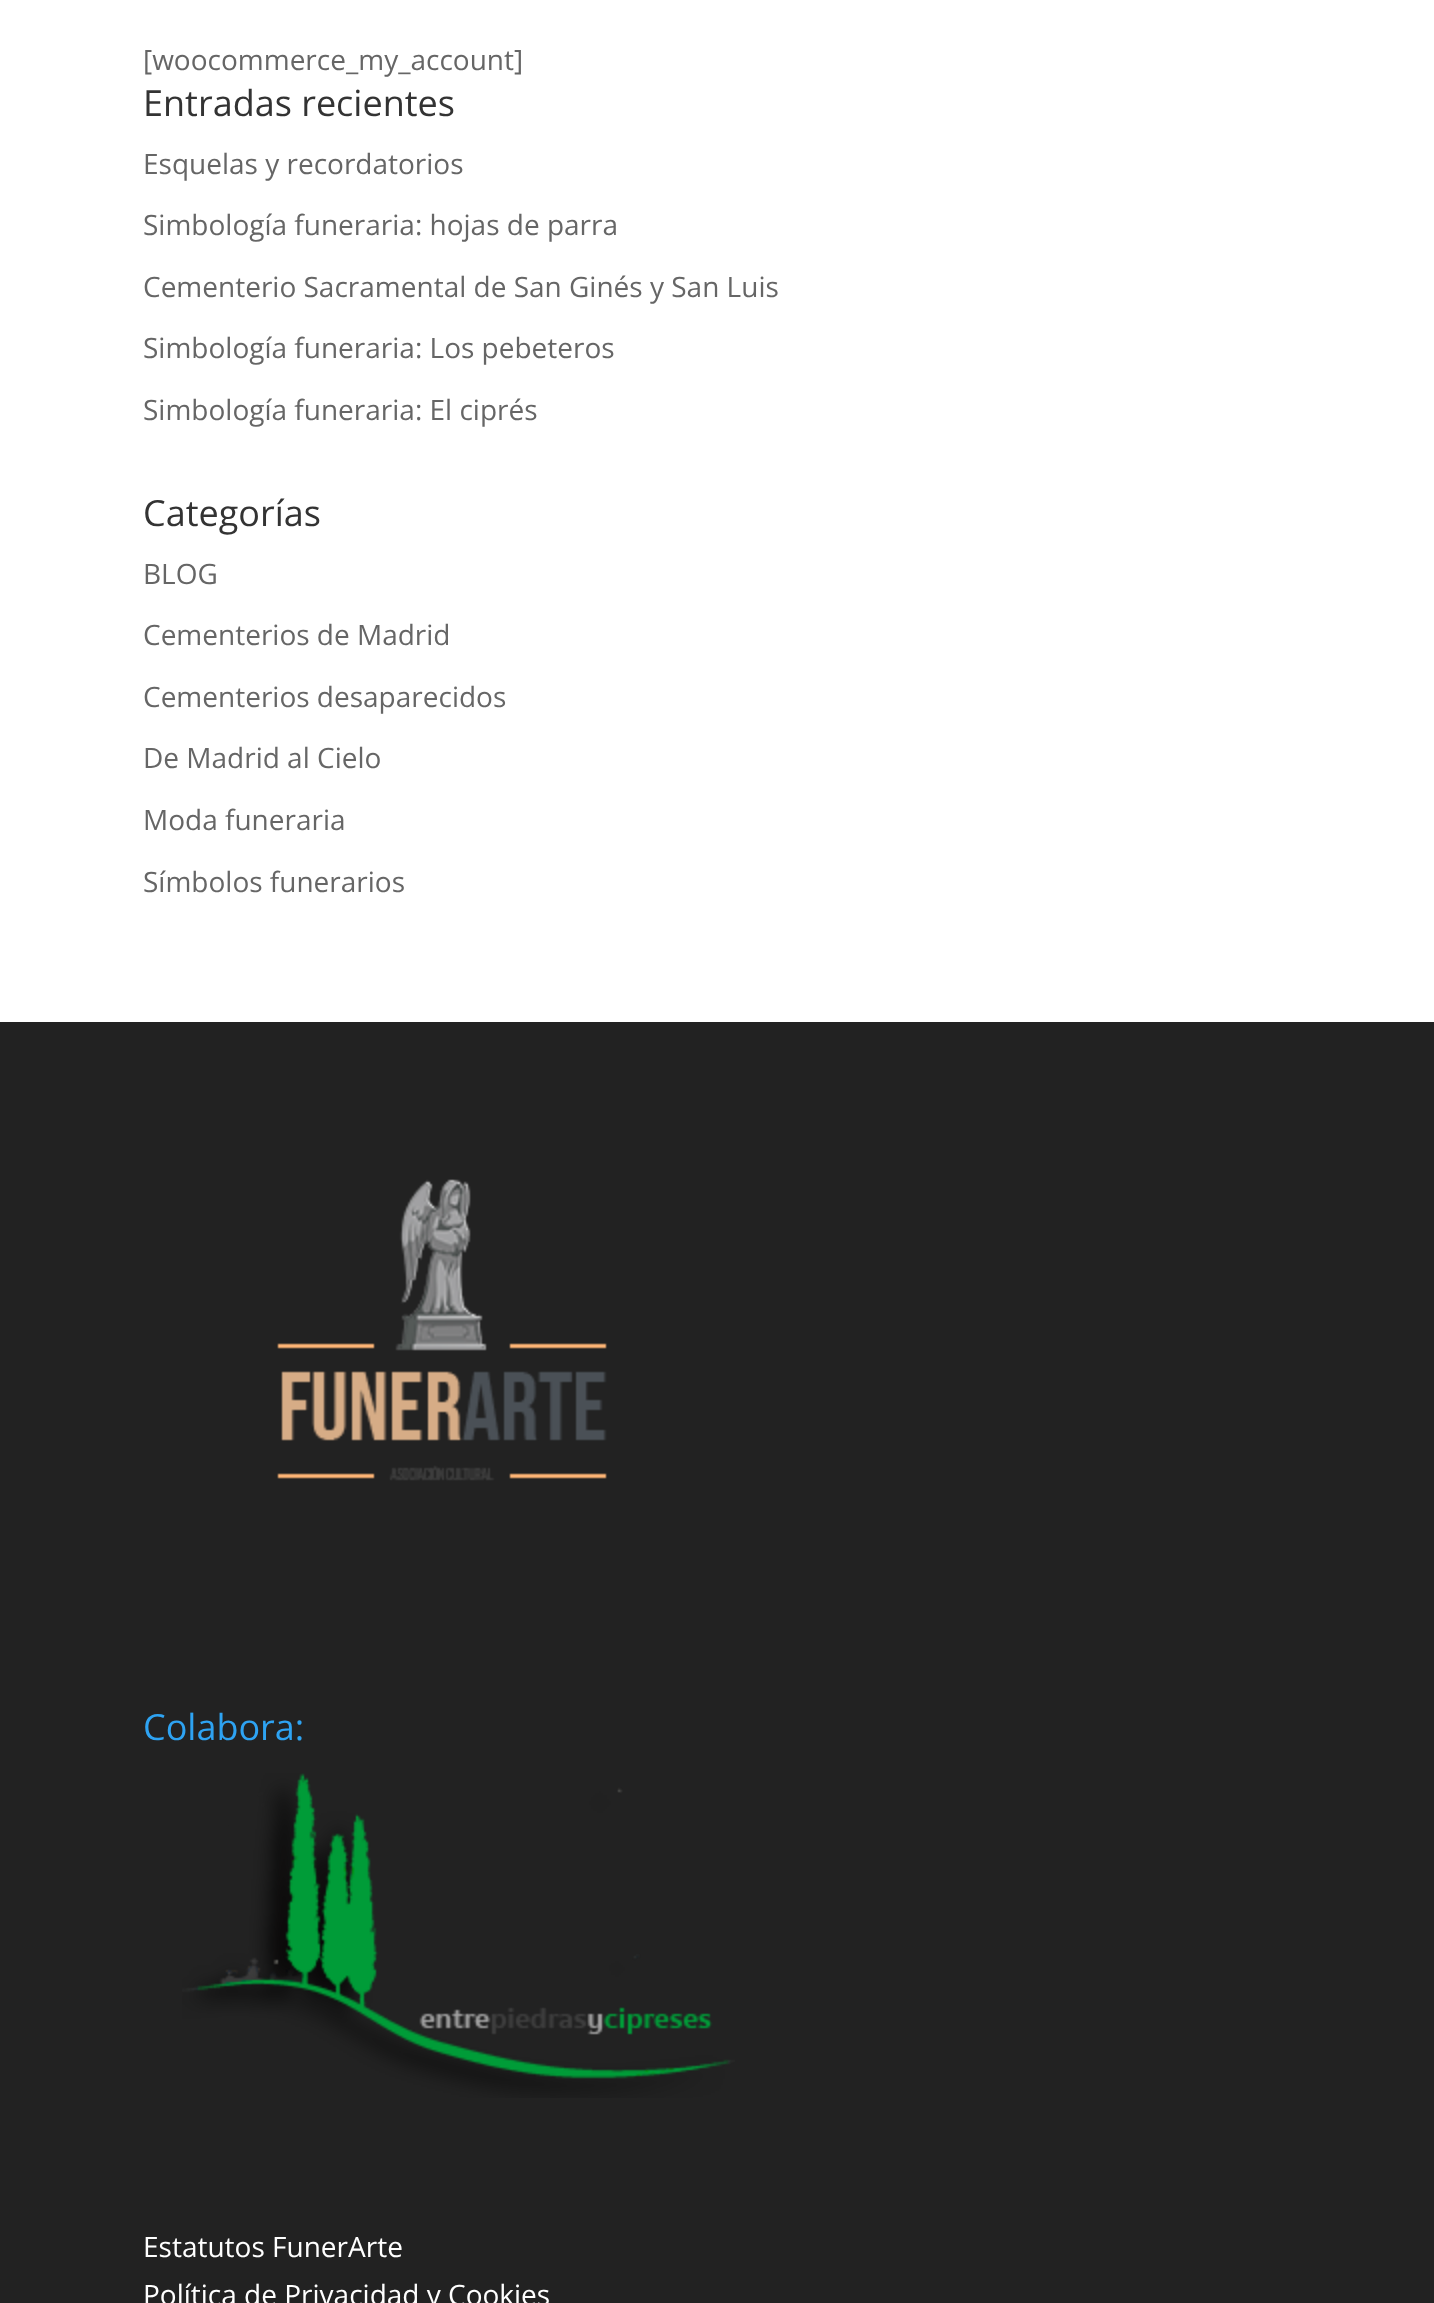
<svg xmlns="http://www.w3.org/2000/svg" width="1434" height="2303">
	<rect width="100%" height="100%" fill="#FFFFFF" />
	<text x="143" y="70" font-family="Open Sans" font-size="28" fill="#666666">[woocommerce_my_account]</text>
	<text x="143" y="116" font-family="Open Sans" font-size="36" fill="#333333">Entradas recientes</text>
	<g font-family="Open Sans" font-size="28" fill="#666666">
		<text x="143" y="174">Esquelas y recordatorios</text>
		<text x="143" y="235">Simbología funeraria: hojas de parra</text>
		<text x="143" y="297">Cementerio Sacramental de San Ginés y San Luis</text>
		<text x="143" y="358">Simbología funeraria: Los pebeteros</text>
		<text x="143" y="420">Simbología funeraria: El ciprés</text>
	</g>
	<text x="143" y="526" font-family="Open Sans" font-size="36" fill="#333333">Categorías</text>
	<g font-family="Open Sans" font-size="28" fill="#666666">
		<text x="143" y="584">BLOG</text>
		<text x="143" y="645">Cementerios de Madrid</text>
		<text x="143" y="707">Cementerios desaparecidos</text>
		<text x="143" y="768">De Madrid al Cielo</text>
		<text x="143" y="830">Moda funeraria</text>
		<text x="143" y="892">Símbolos funerarios</text>
	</g>
	<rect x="0" y="1022" width="1434" height="1281" fill="#222222" />
	<image x="277" y="1179" width="330" height="302" href="assets/img1.png" />
	<text x="143" y="1740" font-family="Open Sans" font-size="36" fill="#2EA3F2">Colabora:</text>
	<image x="182" y="1773" width="553" height="325" href="assets/img2.png" />
	<g font-family="Open Sans" font-size="28" fill="#FFFFFF">
		<text x="143" y="2257">Estatutos FunerArte</text>
		<text x="143" y="2305">Política de Privacidad y Cookies</text>
	</g>
</svg>
